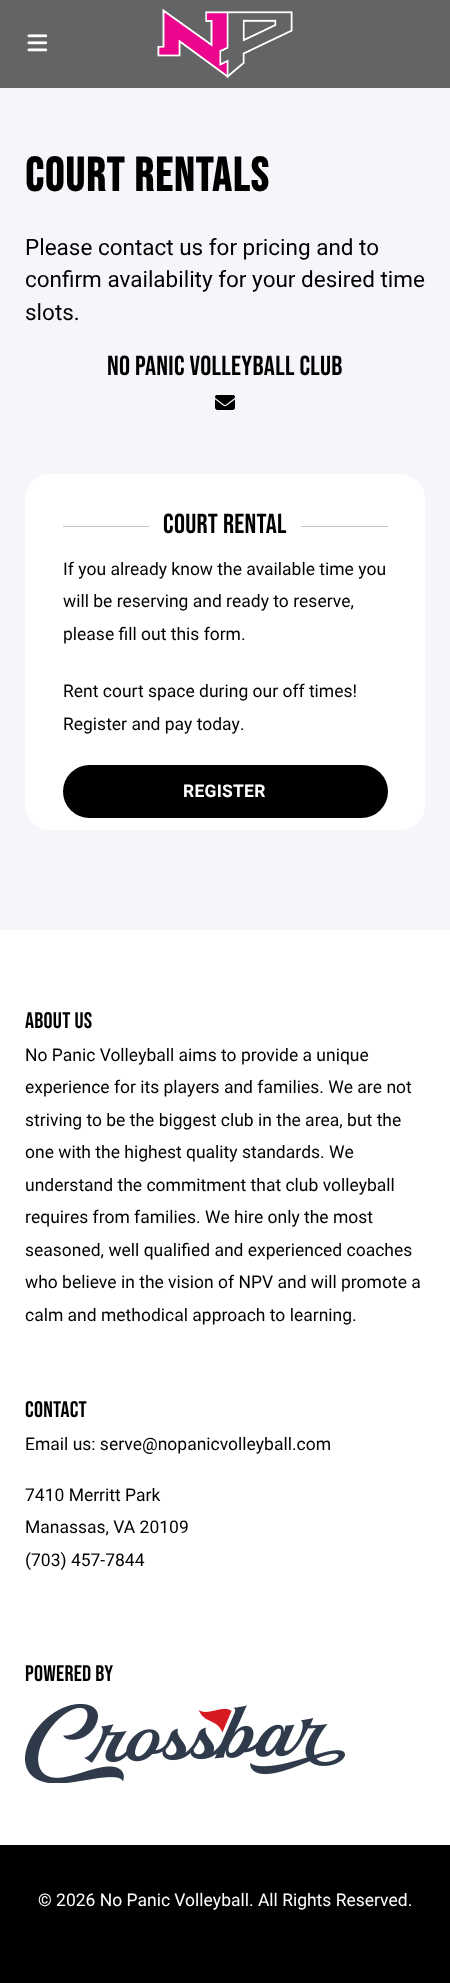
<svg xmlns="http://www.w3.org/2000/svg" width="450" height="1983">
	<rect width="100%" height="100%" fill="#F6F5FA" />
	<rect x="0" y="0" width="450" height="88" fill="#636466" />
	<image x="27" y="34" width="21" height="18" href="assets/img1.png" />
	<image x="157" y="8" width="136" height="71" href="assets/img2.png" />
	<text x="25" y="191" font-family="Bebas Neue" font-size="47.5" font-weight="700" letter-spacing="1.5" fill="#000000">COURT RENTALS</text>
	<g font-family="Roboto" font-size="22.5" fill="#000000">
		<text x="25" y="255">Please contact us for pricing and to</text>
		<text x="25" y="287">confirm availability for your desired time</text>
		<text x="25" y="320">slots.</text>
	</g>
	<text x="107" y="375" font-family="Bebas Neue" font-size="27.5" letter-spacing="0.3" fill="#000000">NO PANIC VOLLEYBALL CLUB</text>
	<image x="215" y="395" width="20" height="15" href="assets/img3.png" />
	<rect x="25" y="474" width="400" height="356" rx="25" fill="#FFFFFF" />
	<rect x="63" y="526" width="325" height="1" fill="#BCC7D1" />
	<rect x="149" y="526" width="152" height="1" fill="#FFFFFF" />
	<text x="163" y="533" font-family="Bebas Neue" font-size="27.5" letter-spacing="0.3" fill="#000000">COURT RENTAL</text>
	<g font-family="Roboto" font-size="17.5" fill="#000000">
		<text x="63" y="575">If you already know the available time you</text>
		<text x="63" y="607">will be reserving and ready to reserve,</text>
		<text x="63" y="640">please fill out this form.</text>
		<text x="63" y="697">Rent court space during our off times!</text>
		<text x="63" y="730">Register and pay today.</text>
	</g>
	<rect x="63" y="765" width="325" height="53" rx="26.5" fill="#000000" />
	<text x="183" y="797" font-family="Roboto" font-size="17.5" font-weight="700" letter-spacing="0.25" fill="#FFFFFF">REGISTER</text>
	<rect x="0" y="930" width="450" height="915" fill="#FFFFFF" />
	<text x="25" y="1028" font-family="Bebas Neue" font-size="22.5" letter-spacing="0.25" fill="#000000">ABOUT US</text>
	<g font-family="Roboto" font-size="17.5" fill="#000000">
		<text x="25" y="1061">No Panic Volleyball aims to provide a unique</text>
		<text x="25" y="1093">experience for its players and families. We are not</text>
		<text x="25" y="1126">striving to be the biggest club in the area, but the</text>
		<text x="25" y="1158">one with the highest quality standards. We</text>
		<text x="25" y="1191">understand the commitment that club volleyball</text>
		<text x="25" y="1223">requires from families. We hire only the most</text>
		<text x="25" y="1256">seasoned, well qualified and experienced coaches</text>
		<text x="25" y="1288">who believe in the vision of NPV and will promote a</text>
		<text x="25" y="1321">calm and methodical approach to learning.</text>
	</g>
	<text x="25" y="1417" font-family="Bebas Neue" font-size="22.5" letter-spacing="0.25" fill="#000000">CONTACT</text>
	<g font-family="Roboto" font-size="17.5" fill="#000000">
		<text x="25" y="1450">Email us: serve@nopanicvolleyball.com</text>
		<text x="25" y="1501">7410 Merritt Park</text>
		<text x="25" y="1533">Manassas, VA 20109</text>
		<text x="25" y="1566">(703) 457-7844</text>
	</g>
	<text x="25" y="1681" font-family="Bebas Neue" font-size="22.5" letter-spacing="0.25" fill="#000000">POWERED BY</text>
	<image x="25" y="1704" width="320" height="79" href="assets/img4.png" />
	<rect x="0" y="1845" width="450" height="138" fill="#000000" />
	<text x="38" y="1906" font-family="Roboto" font-size="17.5" fill="#FFFFFF">© 2026 No Panic Volleyball. All Rights Reserved.</text>
</svg>
